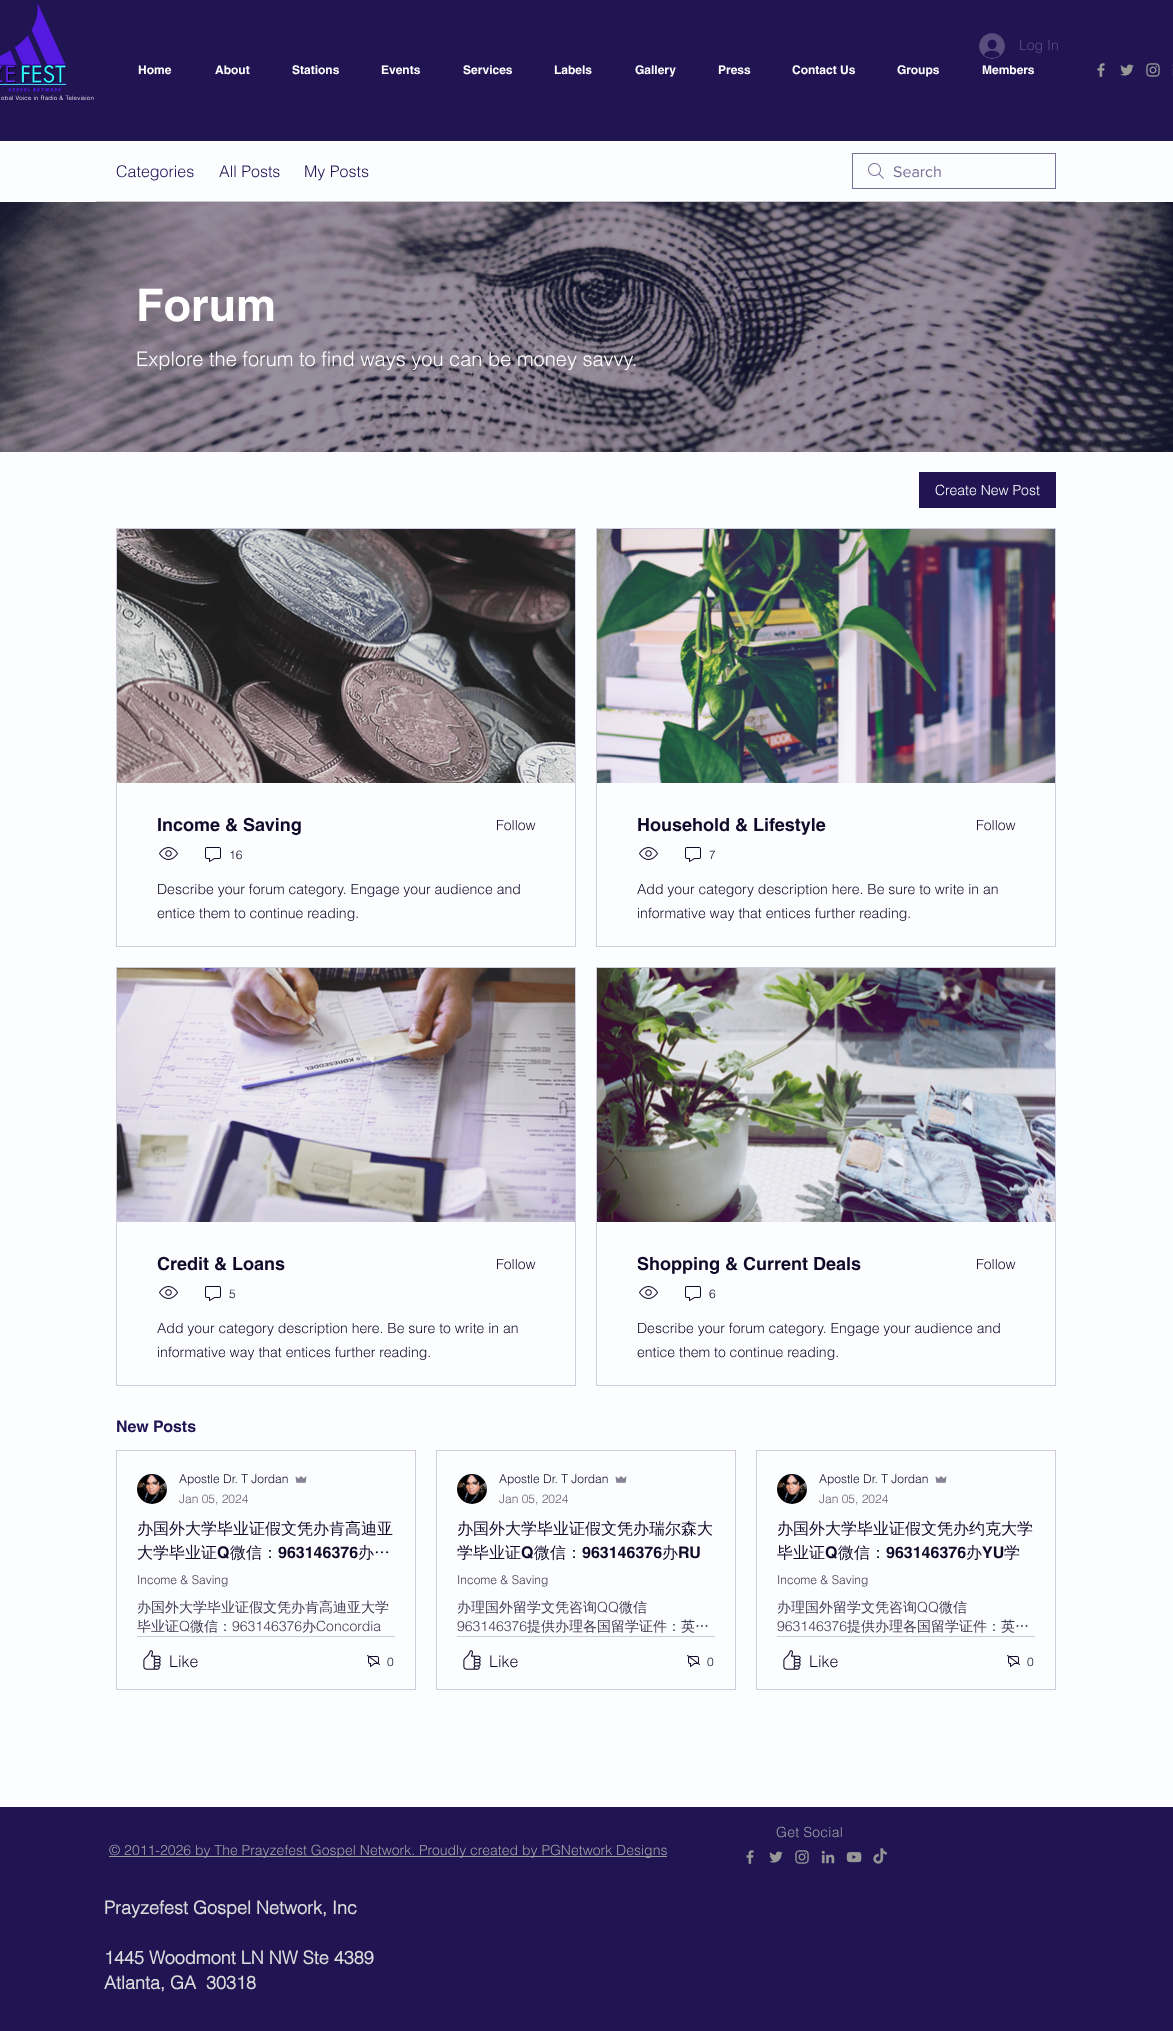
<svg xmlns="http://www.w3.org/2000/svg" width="1173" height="2031">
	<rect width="100%" height="100%" fill="#FCFDFF" />
	<rect x="0" y="0" width="1173" height="141" fill="#201453" />
	<image x="0" y="2" width="67" height="90" href="assets/img1.png" />
	<image x="979" y="33" width="26" height="26" href="assets/img2.png" />
	<text x="1019" y="50" font-family="helvetica" font-size="14" font-weight="300" fill="#574E7E">Log In</text>
	<g font-family="helvetica" font-size="12" font-weight="700" fill="#FFFFFF">
		<text x="138" y="74">Home</text>
		<text x="215" y="74">About</text>
		<text x="292" y="74">Stations</text>
		<text x="381" y="74">Events</text>
		<text x="463" y="74">Services</text>
		<text x="554" y="74">Labels</text>
		<text x="635" y="74">Gallery</text>
		<text x="718" y="74">Press</text>
		<text x="792" y="74">Contact Us</text>
		<text x="897" y="74">Groups</text>
		<text x="982" y="74">Members</text>
	</g>
	<image x="1097" y="63" width="8" height="14" href="assets/img3.png" />
	<image x="1120" y="64" width="14" height="12" href="assets/img4.png" />
	<image x="1146" y="63" width="14" height="14" href="assets/img5.png" />
	<image x="1172" y="64" width="1" height="12" href="assets/img6.png" />
	<text x="1" y="100" font-family="helvetica" font-size="6" font-weight="300" letter-spacing="0.25" fill="#FFFFFF">obal Voice in Radio &amp; Television</text>
	<rect x="96" y="201" width="980" height="1" fill="#CACACC" />
	<g font-family="helvetica" font-size="16" font-weight="300" fill="#201453">
		<text x="116" y="177">Categories</text>
		<text x="219" y="177">All Posts</text>
		<text x="304" y="177">My Posts</text>
	</g>
	<image x="868" y="163" width="16" height="16" href="assets/img7.png" />
	<rect x="852.5" y="153.5" width="203" height="35" fill="none" stroke="#787198" />
	<text x="893" y="177" font-family="'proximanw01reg'" font-size="16" fill="#787198">Search</text>
	<image x="0" y="202" width="1173" height="250" href="assets/img8.png" />
	<text x="136" y="321" font-family="helvetica" font-size="45" font-weight="700" fill="#FFFFFF">Forum</text>
	<text x="136" y="366" font-family="helvetica" font-size="20" font-weight="300" fill="#FFFFFF">Explore the forum to find ways you can be money savvy.</text>
	<rect x="919" y="472" width="137" height="36" fill="#201453" />
	<text x="935" y="495" font-family="helvetica" font-size="14" font-weight="300" fill="#FFFFFF">Create New Post</text>
	<rect x="116.5" y="528.5" width="459" height="418" fill="none" stroke="#D0CEDD" />
	<image x="117" y="529" width="458" height="254" href="assets/img9.png" />
	<text x="157" y="831" font-family="helvetica" font-size="18" font-weight="700" fill="#100A29">Income &amp; Saving</text>
	<text x="496" y="830" font-family="helvetica" font-size="14" font-weight="300" fill="#100A29">Follow</text>
	<image x="159" y="847" width="19" height="13" href="assets/img10.png" />
	<image x="205" y="847" width="16" height="15" href="assets/img11.png" />
	<text x="229" y="859" font-family="helvetica" font-size="12" font-weight="300" fill="#100A29">16</text>
	<g font-family="helvetica" font-size="14" font-weight="300" fill="#100A29">
		<text x="157" y="894">Describe your forum category. Engage your audience and</text>
		<text x="157" y="918">entice them to continue reading.</text>
	</g>
	<rect x="116.5" y="967.5" width="459" height="418" fill="none" stroke="#D0CEDD" />
	<image x="117" y="968" width="458" height="254" href="assets/img12.png" />
	<text x="157" y="1270" font-family="helvetica" font-size="18" font-weight="700" fill="#100A29">Credit &amp; Loans</text>
	<text x="496" y="1269" font-family="helvetica" font-size="14" font-weight="300" fill="#100A29">Follow</text>
	<image x="159" y="1286" width="19" height="13" href="assets/img10.png" />
	<image x="205" y="1286" width="16" height="15" href="assets/img11.png" />
	<text x="229" y="1298" font-family="helvetica" font-size="12" font-weight="300" fill="#100A29">5</text>
	<g font-family="helvetica" font-size="14" font-weight="300" fill="#100A29">
		<text x="157" y="1333">Add your category description here. Be sure to write in an</text>
		<text x="157" y="1357">informative way that entices further reading.</text>
	</g>
	<rect x="596.5" y="528.5" width="459" height="418" fill="none" stroke="#D0CEDD" />
	<image x="597" y="529" width="458" height="254" href="assets/img13.png" />
	<text x="637" y="831" font-family="helvetica" font-size="18" font-weight="700" fill="#100A29">Household &amp; Lifestyle</text>
	<text x="976" y="830" font-family="helvetica" font-size="14" font-weight="300" fill="#100A29">Follow</text>
	<image x="639" y="847" width="19" height="13" href="assets/img10.png" />
	<image x="685" y="847" width="16" height="15" href="assets/img11.png" />
	<text x="709" y="859" font-family="helvetica" font-size="12" font-weight="300" fill="#100A29">7</text>
	<g font-family="helvetica" font-size="14" font-weight="300" fill="#100A29">
		<text x="637" y="894">Add your category description here. Be sure to write in an</text>
		<text x="637" y="918">informative way that entices further reading.</text>
	</g>
	<rect x="596.5" y="967.5" width="459" height="418" fill="none" stroke="#D0CEDD" />
	<image x="597" y="968" width="458" height="254" href="assets/img14.png" />
	<text x="637" y="1270" font-family="helvetica" font-size="18" font-weight="700" fill="#100A29">Shopping &amp; Current Deals</text>
	<text x="976" y="1269" font-family="helvetica" font-size="14" font-weight="300" fill="#100A29">Follow</text>
	<image x="639" y="1286" width="19" height="13" href="assets/img10.png" />
	<image x="685" y="1286" width="16" height="15" href="assets/img11.png" />
	<text x="709" y="1298" font-family="helvetica" font-size="12" font-weight="300" fill="#100A29">6</text>
	<g font-family="helvetica" font-size="14" font-weight="300" fill="#100A29">
		<text x="637" y="1333">Describe your forum category. Engage your audience and</text>
		<text x="637" y="1357">entice them to continue reading.</text>
	</g>
	<text x="116" y="1432" font-family="helvetica" font-size="16" font-weight="700" fill="#201453">New Posts</text>
	<rect x="116.5" y="1450.5" width="299" height="239" fill="none" stroke="#D0CEDD" />
	<image x="137" y="1474" width="30" height="30" href="assets/img15.png" />
	<text x="179" y="1483" font-family="helvetica" font-size="12" font-weight="300" fill="#100A29">Apostle Dr. T Jordan</text>
	<image x="295" y="1476" width="12" height="7" href="assets/img16.png" />
	<text x="179" y="1503" font-family="helvetica" font-size="12" font-weight="300" fill="#656176">Jan 05, 2024</text>
	<g font-family="WenQuanYi Zen Hei" font-size="16" font-weight="500" fill="#100A29">
		<text x="137" y="1534">办国外大学毕业证假文凭办肯高迪亚</text>
		<text x="137" y="1558">大学毕业证</text>
	</g>
	<text x="217" y="1558" font-family="helvetica" font-size="16" font-weight="700" fill="#100A29">Q</text>
	<text x="230" y="1558" font-family="WenQuanYi Zen Hei" font-size="16" font-weight="500" fill="#100A29">微信：</text>
	<text x="278" y="1558" font-family="helvetica" font-size="16" font-weight="700" fill="#100A29">963146376</text>
	<text x="358" y="1558" font-family="WenQuanYi Zen Hei" font-size="16" font-weight="500" fill="#100A29">办…</text>
	<text x="137" y="1584" font-family="helvetica" font-size="12" font-weight="300" fill="#3F3B54">Income &amp; Saving</text>
	<g font-family="WenQuanYi Zen Hei" font-size="14" font-weight="500" fill="#3F3B54">
		<text x="137" y="1612">办国外大学毕业证假文凭办肯高迪亚大学</text>
		<text x="137" y="1631">毕业证</text>
	</g>
	<text x="179" y="1631" font-family="helvetica" font-size="14" font-weight="300" fill="#3F3B54">Q</text>
	<text x="190" y="1631" font-family="WenQuanYi Zen Hei" font-size="14" font-weight="500" fill="#3F3B54">微信：</text>
	<text x="232" y="1631" font-family="helvetica" font-size="14" font-weight="300" fill="#3F3B54">963146376</text>
	<text x="302" y="1631" font-family="WenQuanYi Zen Hei" font-size="14" font-weight="500" fill="#3F3B54">办</text>
	<text x="316" y="1631" font-family="helvetica" font-size="14" font-weight="300" fill="#3F3B54">Concordia</text>
	<rect x="137" y="1636" width="258" height="1" fill="#CDCCD4" />
	<image x="143" y="1650" width="18" height="20" href="assets/img17.png" />
	<text x="169" y="1667" font-family="helvetica" font-size="16" font-weight="300" fill="#100A29">Like</text>
	<image x="367" y="1655" width="13" height="12" href="assets/img18.png" />
	<text x="387" y="1666" font-family="helvetica" font-size="12" font-weight="300" fill="#100A29">0</text>
	<rect x="436.5" y="1450.5" width="299" height="239" fill="none" stroke="#D0CEDD" />
	<image x="457" y="1474" width="30" height="30" href="assets/img19.png" />
	<text x="499" y="1483" font-family="helvetica" font-size="12" font-weight="300" fill="#100A29">Apostle Dr. T Jordan</text>
	<image x="615" y="1476" width="12" height="7" href="assets/img16.png" />
	<text x="499" y="1503" font-family="helvetica" font-size="12" font-weight="300" fill="#656176">Jan 05, 2024</text>
	<g font-family="WenQuanYi Zen Hei" font-size="16" font-weight="500" fill="#100A29">
		<text x="457" y="1534">办国外大学毕业证假文凭办瑞尔森大</text>
		<text x="457" y="1558">学毕业证</text>
	</g>
	<text x="521" y="1558" font-family="helvetica" font-size="16" font-weight="700" fill="#100A29">Q</text>
	<text x="534" y="1558" font-family="WenQuanYi Zen Hei" font-size="16" font-weight="500" fill="#100A29">微信：</text>
	<text x="582" y="1558" font-family="helvetica" font-size="16" font-weight="700" fill="#100A29">963146376</text>
	<text x="662" y="1558" font-family="WenQuanYi Zen Hei" font-size="16" font-weight="500" fill="#100A29">办</text>
	<text x="678" y="1558" font-family="helvetica" font-size="16" font-weight="700" fill="#100A29">RU</text>
	<text x="457" y="1584" font-family="helvetica" font-size="12" font-weight="300" fill="#3F3B54">Income &amp; Saving</text>
	<text x="457" y="1612" font-family="WenQuanYi Zen Hei" font-size="14" font-weight="500" fill="#3F3B54">办理国外留学文凭咨询</text>
	<text x="597" y="1612" font-family="helvetica" font-size="14" font-weight="300" fill="#3F3B54">QQ</text>
	<text x="619" y="1612" font-family="WenQuanYi Zen Hei" font-size="14" font-weight="500" fill="#3F3B54">微信</text>
	<text x="457" y="1631" font-family="helvetica" font-size="14" font-weight="300" fill="#3F3B54">963146376</text>
	<text x="527" y="1631" font-family="WenQuanYi Zen Hei" font-size="14" font-weight="500" fill="#3F3B54">提供办理各国留学证件：英…</text>
	<rect x="457" y="1636" width="258" height="1" fill="#CDCCD4" />
	<image x="463" y="1650" width="18" height="20" href="assets/img17.png" />
	<text x="489" y="1667" font-family="helvetica" font-size="16" font-weight="300" fill="#100A29">Like</text>
	<image x="687" y="1655" width="13" height="12" href="assets/img18.png" />
	<text x="707" y="1666" font-family="helvetica" font-size="12" font-weight="300" fill="#100A29">0</text>
	<rect x="756.5" y="1450.5" width="299" height="239" fill="none" stroke="#D0CEDD" />
	<image x="777" y="1474" width="30" height="30" href="assets/img15.png" />
	<text x="819" y="1483" font-family="helvetica" font-size="12" font-weight="300" fill="#100A29">Apostle Dr. T Jordan</text>
	<image x="935" y="1476" width="12" height="7" href="assets/img16.png" />
	<text x="819" y="1503" font-family="helvetica" font-size="12" font-weight="300" fill="#656176">Jan 05, 2024</text>
	<g font-family="WenQuanYi Zen Hei" font-size="16" font-weight="500" fill="#100A29">
		<text x="777" y="1534">办国外大学毕业证假文凭办约克大学</text>
		<text x="777" y="1558">毕业证</text>
	</g>
	<text x="825" y="1558" font-family="helvetica" font-size="16" font-weight="700" fill="#100A29">Q</text>
	<text x="838" y="1558" font-family="WenQuanYi Zen Hei" font-size="16" font-weight="500" fill="#100A29">微信：</text>
	<text x="886" y="1558" font-family="helvetica" font-size="16" font-weight="700" fill="#100A29">963146376</text>
	<text x="966" y="1558" font-family="WenQuanYi Zen Hei" font-size="16" font-weight="500" fill="#100A29">办</text>
	<text x="982" y="1558" font-family="helvetica" font-size="16" font-weight="700" fill="#100A29">YU</text>
	<text x="1004" y="1558" font-family="WenQuanYi Zen Hei" font-size="16" font-weight="500" fill="#100A29">学</text>
	<text x="777" y="1584" font-family="helvetica" font-size="12" font-weight="300" fill="#3F3B54">Income &amp; Saving</text>
	<text x="777" y="1612" font-family="WenQuanYi Zen Hei" font-size="14" font-weight="500" fill="#3F3B54">办理国外留学文凭咨询</text>
	<text x="917" y="1612" font-family="helvetica" font-size="14" font-weight="300" fill="#3F3B54">QQ</text>
	<text x="939" y="1612" font-family="WenQuanYi Zen Hei" font-size="14" font-weight="500" fill="#3F3B54">微信</text>
	<text x="777" y="1631" font-family="helvetica" font-size="14" font-weight="300" fill="#3F3B54">963146376</text>
	<text x="847" y="1631" font-family="WenQuanYi Zen Hei" font-size="14" font-weight="500" fill="#3F3B54">提供办理各国留学证件：英…</text>
	<rect x="777" y="1636" width="258" height="1" fill="#CDCCD4" />
	<image x="783" y="1650" width="18" height="20" href="assets/img17.png" />
	<text x="809" y="1667" font-family="helvetica" font-size="16" font-weight="300" fill="#100A29">Like</text>
	<image x="1007" y="1655" width="13" height="12" href="assets/img18.png" />
	<text x="1027" y="1666" font-family="helvetica" font-size="12" font-weight="300" fill="#100A29">0</text>
	<rect x="0" y="1807" width="1173" height="224" fill="#201453" />
	<text x="776" y="1837" font-family="helvetica" font-size="14" font-weight="300" letter-spacing="0.25" fill="#9FA0A6">Get Social</text>
	<rect x="109" y="1856" width="558" height="1" fill="#9FA0A6" />
	<text x="109" y="1855" font-family="helvetica" font-size="14" font-weight="300" fill="#9FA0A6">© 2011-2026 by The Prayzefest Gospel Network. Proudly created by PGNetwork Designs</text>
	<image x="746" y="1850" width="8" height="14" href="assets/img3.png" />
	<image x="769" y="1851" width="14" height="12" href="assets/img4.png" />
	<image x="795" y="1850" width="14" height="14" href="assets/img5.png" />
	<image x="821" y="1850" width="14" height="14" href="assets/img20.png" />
	<image x="846" y="1851" width="16" height="12" href="assets/img21.png" />
	<image x="873" y="1848" width="14" height="16" href="assets/img22.png" />
	<g font-family="'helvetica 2'" font-size="18" font-weight="700" fill="#DBDBDB">
		<text x="104" y="1914">Prayzefest Gospel Network, Inc</text>
		<text x="104" y="1964">1445 Woodmont LN NW Ste 4389</text>
		<text x="104" y="1989" xml:space="preserve">Atlanta, GA  30318</text>
	</g>
</svg>
